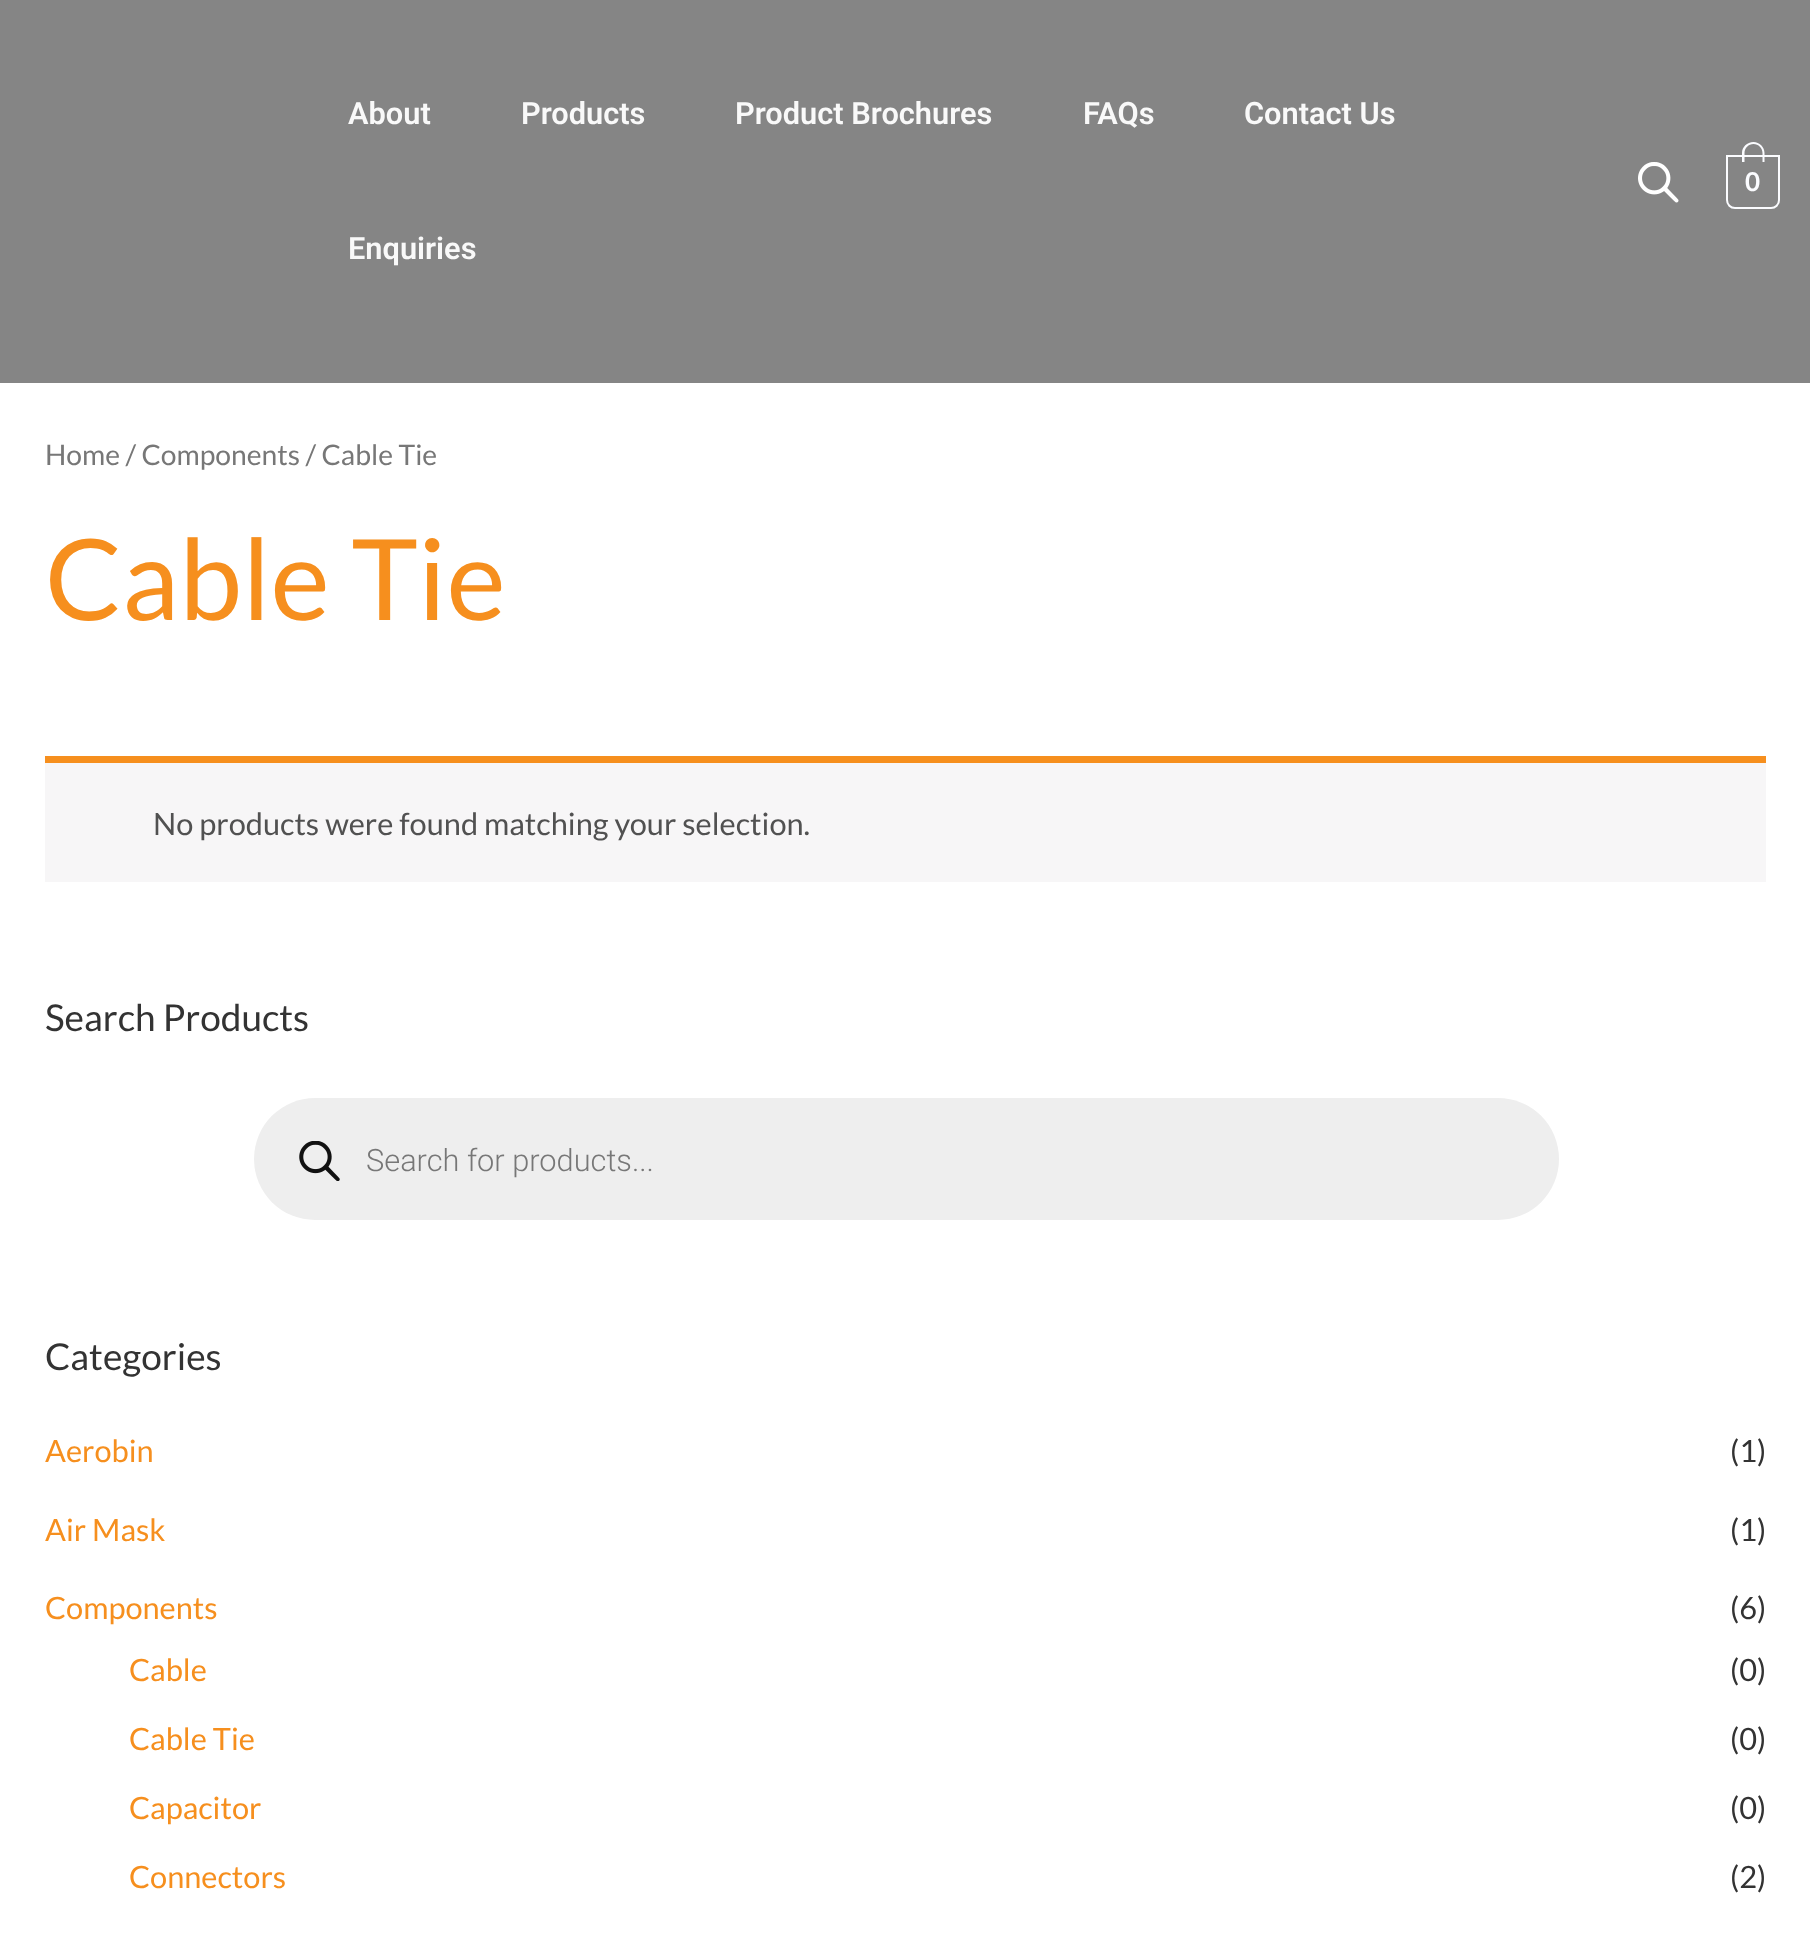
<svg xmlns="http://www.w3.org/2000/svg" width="1810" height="1943">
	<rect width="100%" height="100%" fill="#FFFFFF" />
	<rect x="0" y="0" width="1810" height="383" fill="#858585" />
	<g font-family="Roboto" font-size="30.75" font-weight="600" fill="#F9F9F9">
		<text x="348" y="124">About</text>
		<text x="521" y="124">Products</text>
		<text x="735" y="124">Product Brochures</text>
		<text x="1083" y="124">FAQs</text>
		<text x="1244" y="124">Contact Us</text>
		<text x="348" y="259">Enquiries</text>
	</g>
	<image x="1638" y="162" width="41" height="41" href="assets/img1.png" />
	<path d="M1727 156H1779V200C1779 204.5 1775.5 208 1771 208H1735C1730.5 208 1727 204.5 1727 200Z" fill="none" stroke="#FBFCFF" stroke-width="2" />
	<path d="M1753.5 142C1759.5 142 1764.5 147 1764.5 153V162H1742V153C1742 147 1747 142 1753.5 142ZM1753.5 144C1758.5 144 1762.5 148 1762.5 153V162H1744.5V153C1744.5 148 1748.5 144 1753.5 144Z" fill="#FBFCFF" fill-rule="evenodd" />
	<text x="1745" y="191" font-family="Lato" font-size="26" font-weight="700" fill="#FBFCFF">0</text>
	<text x="45" y="465" font-family="Lato" font-size="28.25" fill="#777777">Home / Components / Cable Tie</text>
	<text x="45" y="620" font-family="Lato" font-size="112.5" fill="#F68F1E">Cable Tie</text>
	<rect x="45" y="763" width="1721" height="119" fill="#F7F6F7" />
	<rect x="45" y="756" width="1721" height="7" fill="#F68F1E" />
	<text x="153" y="835" font-family="Lato" font-size="30.75" fill="#515151">No products were found matching your selection.</text>
	<text x="45" y="1031" font-family="Lato" font-size="37" fill="#333333">Search Products</text>
	<rect x="254" y="1098" width="1305" height="122" rx="61" fill="#EEEEEE" />
	<image x="299" y="1141" width="41" height="40" href="assets/img2.png" />
	<text x="366" y="1171" font-family="Roboto" font-size="30.75" font-weight="300" fill="#777777">Search for products...</text>
	<text x="45" y="1370" font-family="Lato" font-size="37" fill="#333333">Categories</text>
	<text x="45" y="1462" font-family="Lato" font-size="30.75" fill="#F68F1E">Aerobin</text>
	<text x="1730" y="1462" font-family="Lato" font-size="30.75" fill="#333333">(1)</text>
	<text x="45" y="1541" font-family="Lato" font-size="30.75" fill="#F68F1E">Air Mask</text>
	<text x="1730" y="1541" font-family="Lato" font-size="30.75" fill="#333333">(1)</text>
	<text x="45" y="1619" font-family="Lato" font-size="30.75" fill="#F68F1E">Components</text>
	<text x="1730" y="1619" font-family="Lato" font-size="30.75" fill="#333333">(6)</text>
	<text x="129" y="1681" font-family="Lato" font-size="30.75" fill="#F68F1E">Cable</text>
	<text x="1730" y="1681" font-family="Lato" font-size="30.75" fill="#333333">(0)</text>
	<text x="129" y="1750" font-family="Lato" font-size="30.75" fill="#F68F1E">Cable Tie</text>
	<text x="1730" y="1750" font-family="Lato" font-size="30.75" fill="#333333">(0)</text>
	<text x="129" y="1819" font-family="Lato" font-size="30.75" fill="#F68F1E">Capacitor</text>
	<text x="1730" y="1819" font-family="Lato" font-size="30.75" fill="#333333">(0)</text>
	<text x="129" y="1888" font-family="Lato" font-size="30.75" fill="#F68F1E">Connectors</text>
	<text x="1730" y="1888" font-family="Lato" font-size="30.75" fill="#333333">(2)</text>
</svg>
